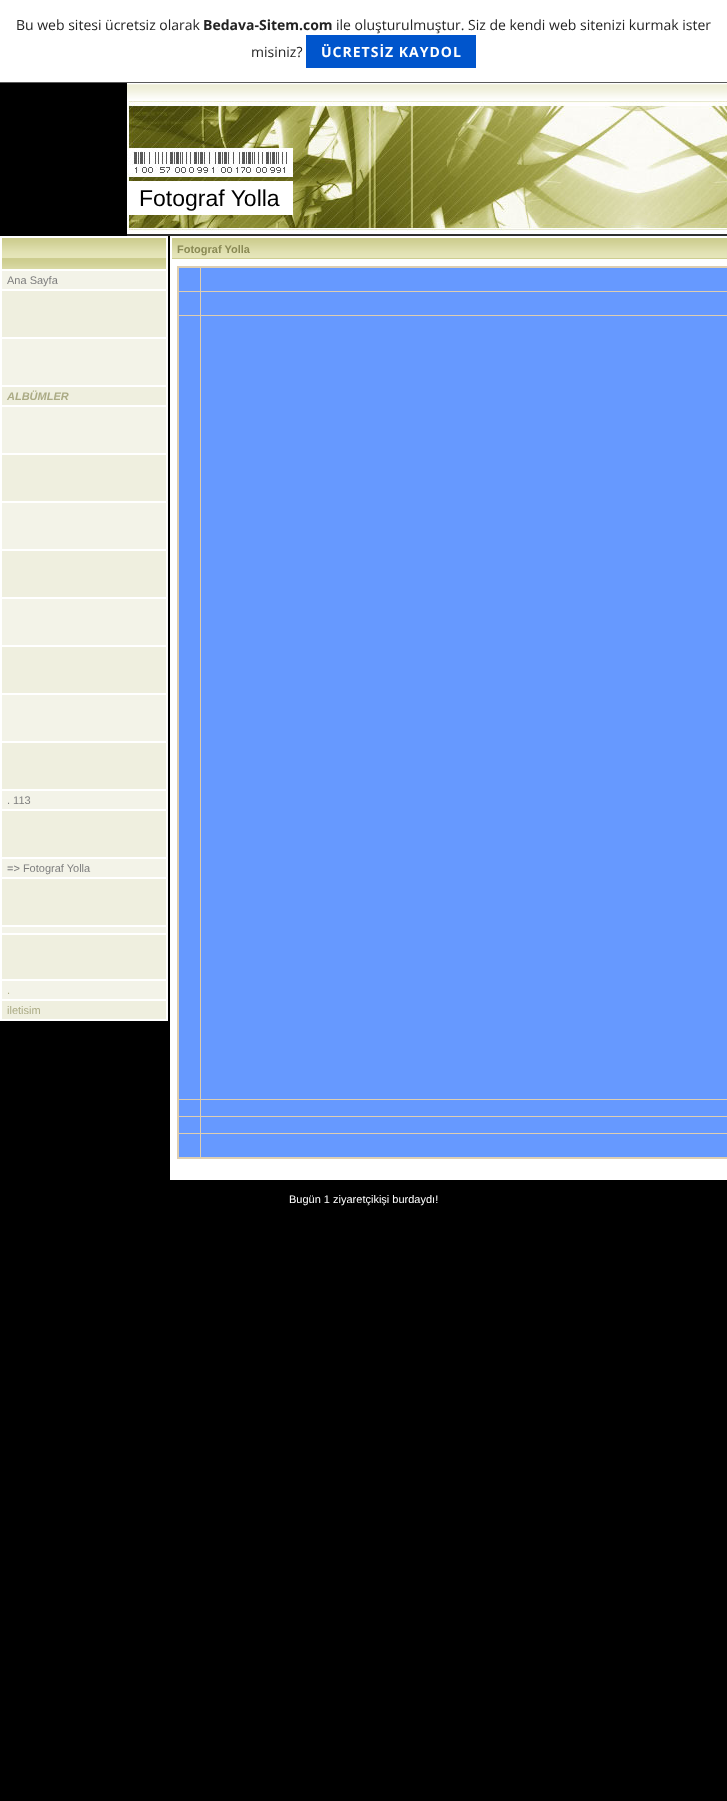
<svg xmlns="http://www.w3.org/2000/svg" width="727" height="1801">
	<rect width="100%" height="100%" fill="#000000" />
	<rect x="0" y="0" width="727" height="82" fill="#FFFFFF" />
	<rect x="0" y="82" width="727" height="1" fill="#5A5A5A" />
	<text x="16" y="30" font-family="Open Sans" font-size="14" fill="#232323">Bu web sitesi ücretsiz olarak</text>
	<text x="203" y="30" font-family="Open Sans" font-size="14" font-weight="700" fill="#232323">Bedava-Sitem.com</text>
	<g font-family="Open Sans" font-size="14" fill="#232323">
		<text x="336" y="30">ile oluşturulmuştur. Siz de kendi web sitenizi kurmak ister</text>
		<text x="251" y="57">misiniz?</text>
	</g>
	<rect x="306" y="35" width="170" height="33" fill="#0055CC" />
	<text x="321" y="57" font-family="Open Sans" font-size="14" font-weight="700" letter-spacing="1" fill="#FFFFFF">ÜCRETSİZ KAYDOL</text>
	<image x="127" y="83" width="600" height="18" href="assets/img1.png" />
	<image x="127" y="101" width="166" height="80" href="assets/img2.png" />
	<image x="293" y="101" width="200" height="80" href="assets/img3.png" />
	<image x="493" y="101" width="200" height="80" href="assets/img4.png" />
	<image x="693" y="101" width="34" height="80" href="assets/img5.png" />
	<rect x="127" y="181" width="166" height="34" fill="#FFFFFF" />
	<text x="139" y="206" font-family="Liberation Sans" font-size="23" fill="#000000">Fotograf Yolla</text>
	<image x="293" y="181" width="200" height="34" href="assets/img6.png" />
	<image x="493" y="181" width="200" height="34" href="assets/img7.png" />
	<image x="693" y="181" width="34" height="34" href="assets/img8.png" />
	<image x="127" y="215" width="600" height="21" href="assets/img9.png" />
	<rect x="170" y="236" width="557" height="944" fill="#FFFFFF" />
	<image x="172" y="238" width="555" height="21" href="assets/img10.png" />
	<text x="177" y="253" font-family="Liberation Sans" font-size="11" font-weight="700" fill="#8A8A55">Fotograf Yolla</text>
	<rect x="177" y="266" width="550" height="1" fill="#DECEB1" />
	<rect x="177" y="1158" width="550" height="1" fill="#DECEB1" />
	<rect x="177" y="266" width="1" height="893" fill="#DECEB1" />
	<rect x="178" y="267" width="549" height="1" fill="#DECEB1" />
	<rect x="178" y="1157" width="549" height="1" fill="#DECEB1" />
	<rect x="178" y="267" width="1" height="891" fill="#DECEB1" />
	<rect x="179" y="268" width="21" height="23" fill="#6699FF" />
	<rect x="201" y="268" width="526" height="23" fill="#6699FF" />
	<rect x="200" y="291" width="527" height="1" fill="#DECEB1" />
	<rect x="200" y="315" width="527" height="1" fill="#DECEB1" />
	<rect x="200" y="1099" width="527" height="1" fill="#DECEB1" />
	<rect x="200" y="1116" width="527" height="1" fill="#DECEB1" />
	<rect x="200" y="1133" width="527" height="1" fill="#DECEB1" />
	<rect x="200" y="1133" width="1" height="25" fill="#DECEB1" />
	<rect x="178" y="1133" width="23" height="1" fill="#DECEB1" />
	<rect x="200" y="1116" width="1" height="18" fill="#DECEB1" />
	<rect x="178" y="1116" width="23" height="1" fill="#DECEB1" />
	<rect x="200" y="1099" width="1" height="18" fill="#DECEB1" />
	<rect x="178" y="1099" width="23" height="1" fill="#DECEB1" />
	<rect x="200" y="315" width="1" height="785" fill="#DECEB1" />
	<rect x="178" y="315" width="23" height="1" fill="#DECEB1" />
	<rect x="200" y="291" width="1" height="25" fill="#DECEB1" />
	<rect x="178" y="291" width="23" height="1" fill="#DECEB1" />
	<rect x="200" y="267" width="1" height="25" fill="#DECEB1" />
	<rect x="179" y="292" width="21" height="23" fill="#6699FF" />
	<rect x="201" y="292" width="526" height="23" fill="#6699FF" />
	<rect x="179" y="316" width="21" height="783" fill="#6699FF" />
	<rect x="201" y="316" width="526" height="783" fill="#6699FF" />
	<rect x="179" y="1100" width="21" height="16" fill="#6699FF" />
	<rect x="201" y="1100" width="526" height="16" fill="#6699FF" />
	<rect x="179" y="1117" width="21" height="16" fill="#6699FF" />
	<rect x="201" y="1117" width="526" height="16" fill="#6699FF" />
	<rect x="179" y="1134" width="21" height="23" fill="#6699FF" />
	<rect x="201" y="1134" width="526" height="23" fill="#6699FF" />
	<rect x="0" y="236" width="168" height="785" fill="#FFFFFF" />
	<image x="2" y="238" width="164" height="31" href="assets/img11.png" />
	<rect x="2" y="271" width="164" height="18" fill="#F3F3E8" />
	<text x="7" y="284" font-family="Liberation Sans" font-size="11" fill="#7E7E7E">Ana Sayfa</text>
	<rect x="2" y="291" width="164" height="46" fill="#EFEFDF" />
	<rect x="2" y="339" width="164" height="46" fill="#F3F3E8" />
	<rect x="2" y="387" width="164" height="18" fill="#EFEFDF" />
	<text x="7" y="400" font-family="Liberation Sans" font-size="11" font-weight="700" font-style="italic" fill="#ABAB85">ALBÜMLER</text>
	<rect x="2" y="407" width="164" height="46" fill="#F3F3E8" />
	<rect x="2" y="455" width="164" height="46" fill="#EFEFDF" />
	<rect x="2" y="503" width="164" height="46" fill="#F3F3E8" />
	<rect x="2" y="551" width="164" height="46" fill="#EFEFDF" />
	<rect x="2" y="599" width="164" height="46" fill="#F3F3E8" />
	<rect x="2" y="647" width="164" height="46" fill="#EFEFDF" />
	<rect x="2" y="695" width="164" height="46" fill="#F3F3E8" />
	<rect x="2" y="743" width="164" height="46" fill="#EFEFDF" />
	<rect x="2" y="791" width="164" height="18" fill="#F3F3E8" />
	<text x="7" y="804" font-family="Liberation Sans" font-size="11" fill="#7E7E7E">. 113</text>
	<rect x="2" y="811" width="164" height="46" fill="#EFEFDF" />
	<rect x="2" y="859" width="164" height="18" fill="#F3F3E8" />
	<text x="7" y="872" font-family="Liberation Sans" font-size="11" fill="#7E7E7E">=&gt; Fotograf Yolla</text>
	<rect x="2" y="879" width="164" height="46" fill="#EFEFDF" />
	<rect x="2" y="927" width="164" height="6" fill="#F3F3E8" />
	<rect x="2" y="935" width="164" height="44" fill="#EFEFDF" />
	<rect x="2" y="981" width="164" height="18" fill="#F3F3E8" />
	<text x="7" y="994" font-family="Liberation Sans" font-size="11" fill="#ABAB85">.</text>
	<rect x="2" y="1001" width="164" height="18" fill="#EFEFDF" />
	<text x="7" y="1014" font-family="Liberation Sans" font-size="11" fill="#ABAB85">iletisim</text>
	<text x="289" y="1203" font-family="Liberation Sans" font-size="11" fill="#FFFFFF">Bugün 1 ziyaretçikişi burdaydı!</text>
</svg>
